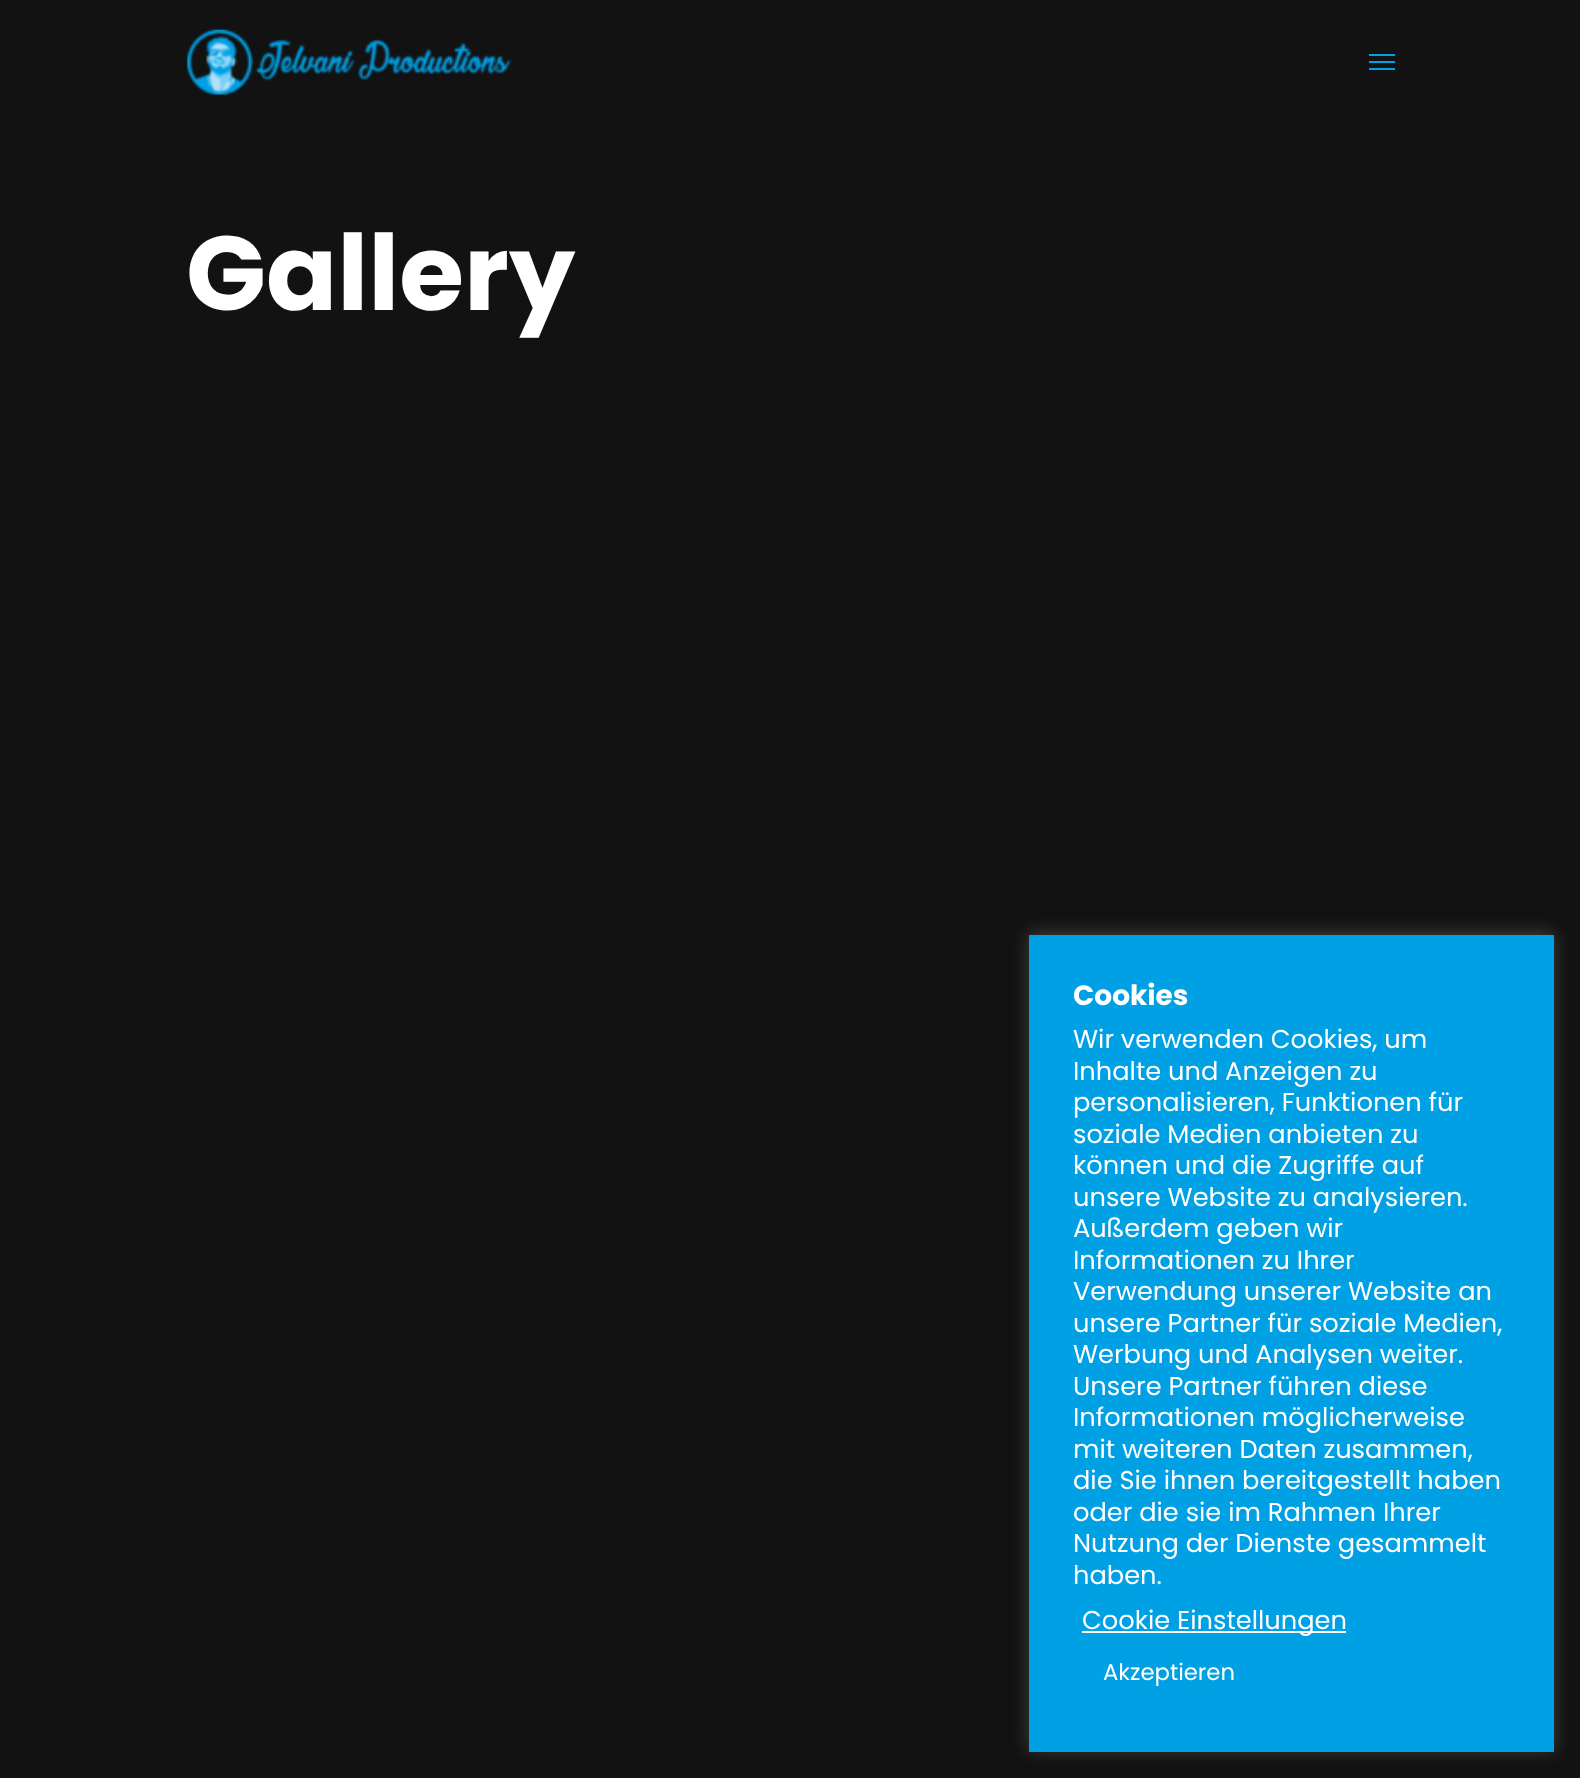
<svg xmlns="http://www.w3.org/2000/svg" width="1580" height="1778">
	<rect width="100%" height="100%" fill="#121212" />
	<image x="186" y="29" width="326" height="66" href="assets/img1.png" />
	<rect x="1369" y="54" width="26" height="2" fill="#00A0E4" />
	<rect x="1369" y="61" width="26" height="2" fill="#00A0E4" />
	<rect x="1369" y="68" width="26" height="2" fill="#00A0E4" />
	<text x="186" y="310" font-family="Poppins" font-size="105" font-weight="700" fill="#FFFFFF">Gallery</text>
	<rect x="1029" y="933" width="525" height="817" fill="#ACABAB" fill-opacity="0.3" filter="blur(9px)" />
	<rect x="1029" y="935" width="525" height="817" fill="#00A0E4" />
	<text x="1073" y="1005" font-family="Poppins" font-size="28" font-weight="700" fill="#FFFFFF">Cookies</text>
	<g font-family="Poppins" font-size="25.7" fill="#FFFFFF">
		<text x="1073" y="1048">Wir verwenden Cookies, um</text>
		<text x="1073" y="1080">Inhalte und Anzeigen zu</text>
		<text x="1073" y="1111">personalisieren, Funktionen für</text>
		<text x="1073" y="1143">soziale Medien anbieten zu</text>
		<text x="1073" y="1174">können und die Zugriffe auf</text>
		<text x="1073" y="1206">unsere Website zu analysieren.</text>
		<text x="1073" y="1237">Außerdem geben wir</text>
		<text x="1073" y="1269">Informationen zu Ihrer</text>
		<text x="1073" y="1300">Verwendung unserer Website an</text>
		<text x="1073" y="1332">unsere Partner für soziale Medien,</text>
		<text x="1073" y="1363">Werbung und Analysen weiter.</text>
		<text x="1073" y="1395">Unsere Partner führen diese</text>
		<text x="1073" y="1426">Informationen möglicherweise</text>
		<text x="1073" y="1458">mit weiteren Daten zusammen,</text>
		<text x="1073" y="1489">die Sie ihnen bereitgestellt haben</text>
		<text x="1073" y="1521">oder die sie im Rahmen Ihrer</text>
		<text x="1073" y="1552">Nutzung der Dienste gesammelt</text>
		<text x="1073" y="1584">haben.</text>
	</g>
	<rect x="1082" y="1631" width="264" height="2" fill="#FFFFFF" />
	<text x="1082" y="1629" font-family="Poppins" font-size="25.7" fill="#FFFFFF">Cookie Einstellungen</text>
	<text x="1103" y="1680" font-family="Poppins" font-size="22.75" fill="#FFFFFF">Akzeptieren</text>
</svg>
